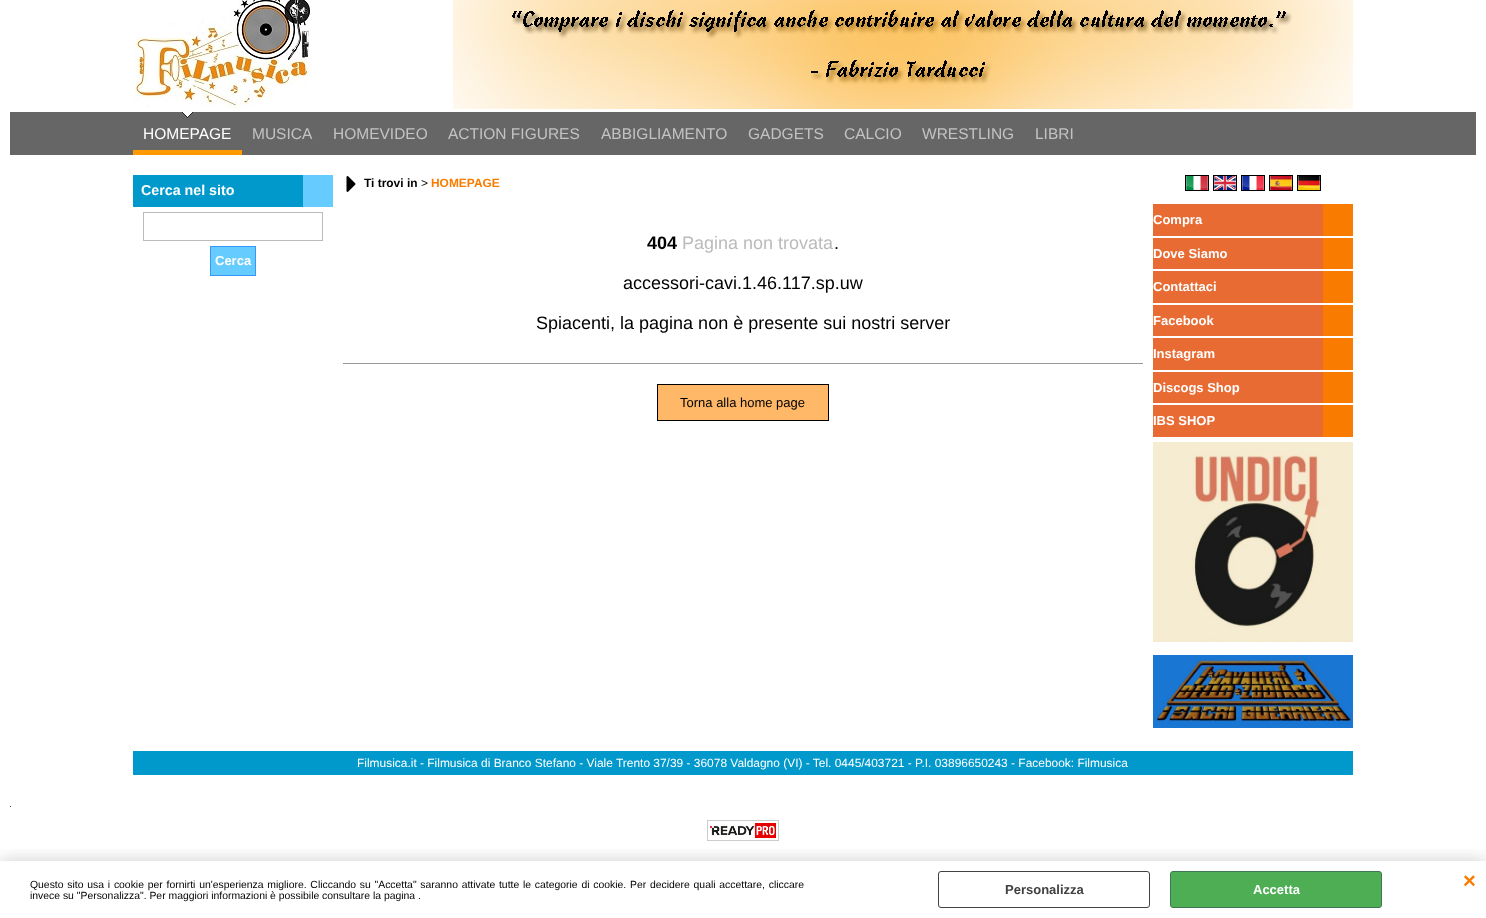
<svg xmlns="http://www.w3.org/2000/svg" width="1486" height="918">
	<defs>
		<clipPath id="clip1"><rect x="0" y="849" width="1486" height="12" /></clipPath>
	</defs>
	<rect width="100%" height="100%" fill="#FFFFFF" />
	<image x="133" y="0" width="177" height="108" href="assets/img1.png" />
	<image x="453" y="0" width="900" height="109" href="assets/img2.png" />
	<rect x="10" y="112" width="1466" height="43" fill="#666666" />
	<image x="182" y="112" width="11" height="6" href="assets/img3.png" />
	<rect x="133" y="150" width="109" height="5" fill="#FF9900" />
	<text x="143" y="139" font-family="Liberation Sans" font-size="15.5" fill="#FFFFFF">HOMEPAGE</text>
	<g font-family="Liberation Sans" font-size="15.5" fill="#C3C3C3">
		<text x="252" y="139">MUSICA</text>
		<text x="333" y="139">HOMEVIDEO</text>
		<text x="448" y="139">ACTION FIGURES</text>
		<text x="601" y="139">ABBIGLIAMENTO</text>
		<text x="748" y="139">GADGETS</text>
		<text x="844" y="139">CALCIO</text>
		<text x="922" y="139">WRESTLING</text>
		<text x="1035" y="139">LIBRI</text>
	</g>
	<rect x="133" y="175" width="170" height="32" fill="#0199CB" />
	<rect x="303" y="175" width="30" height="32" fill="#66CCFF" />
	<text x="141" y="195" font-family="Liberation Sans" font-size="14.25" font-weight="700" fill="#FFFFFF">Cerca nel sito</text>
	<rect x="143.5" y="212.5" width="179" height="28" fill="none" stroke="#BBBBBB" />
	<rect x="210.5" y="246.5" width="45" height="29" fill="#66CCFF" stroke="#3399FF" />
	<text x="215" y="265" font-family="Liberation Sans" font-size="13" font-weight="700" fill="#FFFFFF">Cerca</text>
	<image x="346" y="176" width="10" height="16" href="assets/img4.png" />
	<text x="364" y="187" font-family="Liberation Sans" font-size="11.95" font-weight="700" fill="#000000">Ti trovi in</text>
	<text x="421" y="187" font-family="Liberation Sans" font-size="11.95" fill="#000000">&gt;</text>
	<text x="431" y="187" font-family="Liberation Sans" font-size="11.95" font-weight="700" fill="#F97C00">HOMEPAGE</text>
	<rect x="343" y="363" width="800" height="1" fill="#999999" />
	<text x="647" y="249" font-family="Liberation Sans" font-size="18" font-weight="700" fill="#000000">404</text>
	<text x="682" y="249" font-family="Liberation Sans" font-size="18" fill="#BBBBBB">Pagina non trovata</text>
	<g font-family="Liberation Sans" font-size="18" fill="#000000">
		<text x="834" y="249">.</text>
		<text x="623" y="289">accessori-cavi.1.46.117.sp.uw</text>
		<text x="536" y="329">Spiacenti, la pagina non è presente sui nostri server</text>
	</g>
	<rect x="657.5" y="384.5" width="171" height="36" fill="#FFB768" stroke="#000000" />
	<text x="680" y="407" font-family="Liberation Sans" font-size="13" fill="#000000">Torna alla home page</text>
	<rect x="1185.5" y="175.5" width="23" height="15" fill="none" stroke="#000000" />
	<rect x="1213.5" y="175.5" width="23" height="15" fill="none" stroke="#000000" />
	<rect x="1241.5" y="175.5" width="23" height="15" fill="none" stroke="#000000" />
	<rect x="1269.5" y="175.5" width="23" height="15" fill="none" stroke="#000000" />
	<rect x="1297.5" y="175.5" width="23" height="15" fill="none" stroke="#000000" />
	<image x="1186" y="176" width="22" height="14" href="assets/img5.png" />
	<image x="1214" y="176" width="22" height="14" href="assets/img6.png" />
	<image x="1242" y="176" width="22" height="14" href="assets/img7.png" />
	<image x="1270" y="176" width="22" height="14" href="assets/img8.png" />
	<image x="1298" y="176" width="22" height="14" href="assets/img9.png" />
	<rect x="1153" y="204" width="170" height="32" fill="#E86B33" />
	<rect x="1323" y="204" width="30" height="32" fill="#F97C00" />
	<text x="1153" y="224" font-family="Liberation Sans" font-size="13" font-weight="700" fill="#FFFFFF">Compra</text>
	<rect x="1153" y="238" width="170" height="31" fill="#E86B33" />
	<rect x="1323" y="238" width="30" height="31" fill="#F97C00" />
	<text x="1153" y="258" font-family="Liberation Sans" font-size="13" font-weight="700" fill="#FFFFFF">Dove Siamo</text>
	<rect x="1153" y="271" width="170" height="32" fill="#E86B33" />
	<rect x="1323" y="271" width="30" height="32" fill="#F97C00" />
	<text x="1153" y="291" font-family="Liberation Sans" font-size="13" font-weight="700" fill="#FFFFFF">Contattaci</text>
	<rect x="1153" y="305" width="170" height="31" fill="#E86B33" />
	<rect x="1323" y="305" width="30" height="31" fill="#F97C00" />
	<text x="1153" y="325" font-family="Liberation Sans" font-size="13" font-weight="700" fill="#FFFFFF">Facebook</text>
	<rect x="1153" y="338" width="170" height="32" fill="#E86B33" />
	<rect x="1323" y="338" width="30" height="32" fill="#F97C00" />
	<text x="1153" y="358" font-family="Liberation Sans" font-size="13" font-weight="700" fill="#FFFFFF">Instagram</text>
	<rect x="1153" y="372" width="170" height="31" fill="#E86B33" />
	<rect x="1323" y="372" width="30" height="31" fill="#F97C00" />
	<text x="1153" y="392" font-family="Liberation Sans" font-size="13" font-weight="700" fill="#FFFFFF">Discogs Shop</text>
	<rect x="1153" y="405" width="170" height="32" fill="#E86B33" />
	<rect x="1323" y="405" width="30" height="32" fill="#F97C00" />
	<text x="1153" y="425" font-family="Liberation Sans" font-size="13" font-weight="700" fill="#FFFFFF">IBS SHOP</text>
	<image x="1153" y="442" width="200" height="200" href="assets/img10.png" />
	<image x="1153" y="655" width="200" height="73" href="assets/img11.png" />
	<rect x="133" y="751" width="1220" height="24" fill="#0199CB" />
	<text x="357" y="767" font-family="Liberation Sans" font-size="11.95" fill="#FFFFFF">Filmusica.it - Filmusica di Branco Stefano - Viale Trento 37/39 - 36078 Valdagno (VI) - Tel. 0445/403721 - P.I. 03896650243 - Facebook: Filmusica</text>
	<rect x="10" y="806" width="1" height="1" fill="#4D4D4D" />
	<rect x="707.5" y="820.5" width="71" height="20" fill="none" stroke="#CCCCCC" />
	<image x="710" y="823" width="66" height="15" href="assets/img12.png" />
	<g clip-path="url(#clip1)">
		<rect x="0" y="861" width="1486" height="57" fill="#000000" fill-opacity="0.2" filter="blur(9px)" />
	</g>
	<g font-family="Liberation Sans" font-size="10.4" fill="#000000">
		<text x="30" y="888" word-spacing="0.9">Questo sito usa i cookie per fornirti un'esperienza migliore. Cliccando su "Accetta" saranno attivate tutte le categorie di cookie. Per decidere quali accettare, cliccare</text>
		<text x="30" y="899">invece su "Personalizza". Per maggiori informazioni è possibile consultare la pagina .</text>
	</g>
	<rect x="938.5" y="871.5" width="211" height="36" rx="2.5" fill="none" stroke="#424141" />
	<text x="1005" y="894" font-family="Liberation Sans" font-size="13" font-weight="700" fill="#424141">Personalizza</text>
	<rect x="1170.5" y="871.5" width="211" height="36" rx="2.5" fill="#4EAE54" stroke="#3F7755" />
	<text x="1253" y="894" font-family="Liberation Sans" font-size="13" font-weight="700" fill="#FFFFFF">Accetta</text>
	<text x="1463" y="888" font-family="Liberation Sans" font-size="22" font-weight="700" fill="#F97C00">×</text>
</svg>
